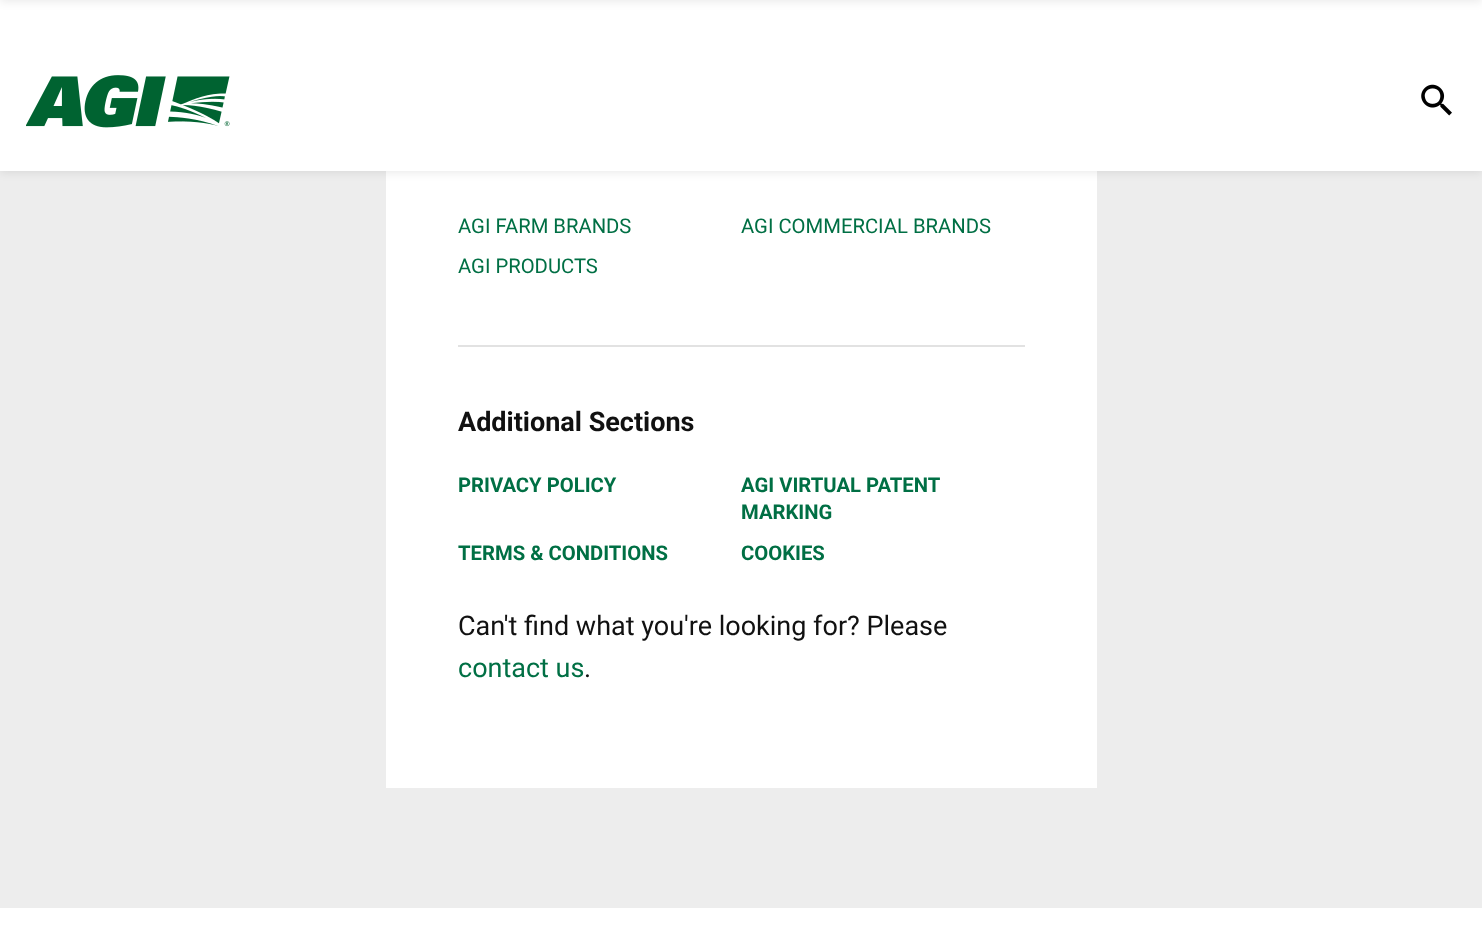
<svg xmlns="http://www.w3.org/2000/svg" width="1482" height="938">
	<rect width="100%" height="100%" fill="#FFFFFF" />
	<rect x="0" y="171" width="1482" height="737" fill="#EDEDED" />
	<rect x="386" y="171" width="711" height="617" fill="#FFFFFF" />
	<rect x="0" y="2" width="1482" height="171" fill="#000000" fill-opacity="0.08" filter="blur(4.5px)" />
	<rect x="0" y="0" width="1482" height="171" fill="#FFFFFF" />
	<image x="1421" y="84" width="31" height="32" href="assets/img1.png" />
	<rect x="0" y="-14" width="1482" height="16" fill="#000000" fill-opacity="0.08" filter="blur(4.5px)" />
	<image x="26" y="75" width="204" height="53" href="assets/img2.png" />
	<g font-family="Roboto" font-size="20.25" fill="#006F44">
		<text x="458" y="233">AGI FARM BRANDS</text>
		<text x="741" y="233">AGI COMMERCIAL BRANDS</text>
		<text x="458" y="273">AGI PRODUCTS</text>
	</g>
	<rect x="458" y="345" width="567" height="2" fill="#E2E2E2" />
	<text x="458" y="431" font-family="Roboto" font-size="27" font-weight="700" fill="#111111">Additional Sections</text>
	<g font-family="Roboto" font-size="20.25" font-weight="700" fill="#006F44">
		<text x="458" y="492">PRIVACY POLICY</text>
		<text x="741" y="492">AGI VIRTUAL PATENT</text>
		<text x="741" y="519">MARKING</text>
		<text x="458" y="560">TERMS &amp; CONDITIONS</text>
		<text x="741" y="560">COOKIES</text>
	</g>
	<text x="458" y="635" font-family="Roboto" font-size="27" fill="#111111">Can't find what you're looking for? Please</text>
	<text x="458" y="677" font-family="Roboto" font-size="27" fill="#006F44">contact us</text>
	<text x="584" y="677" font-family="Roboto" font-size="27" fill="#111111">.</text>
</svg>
